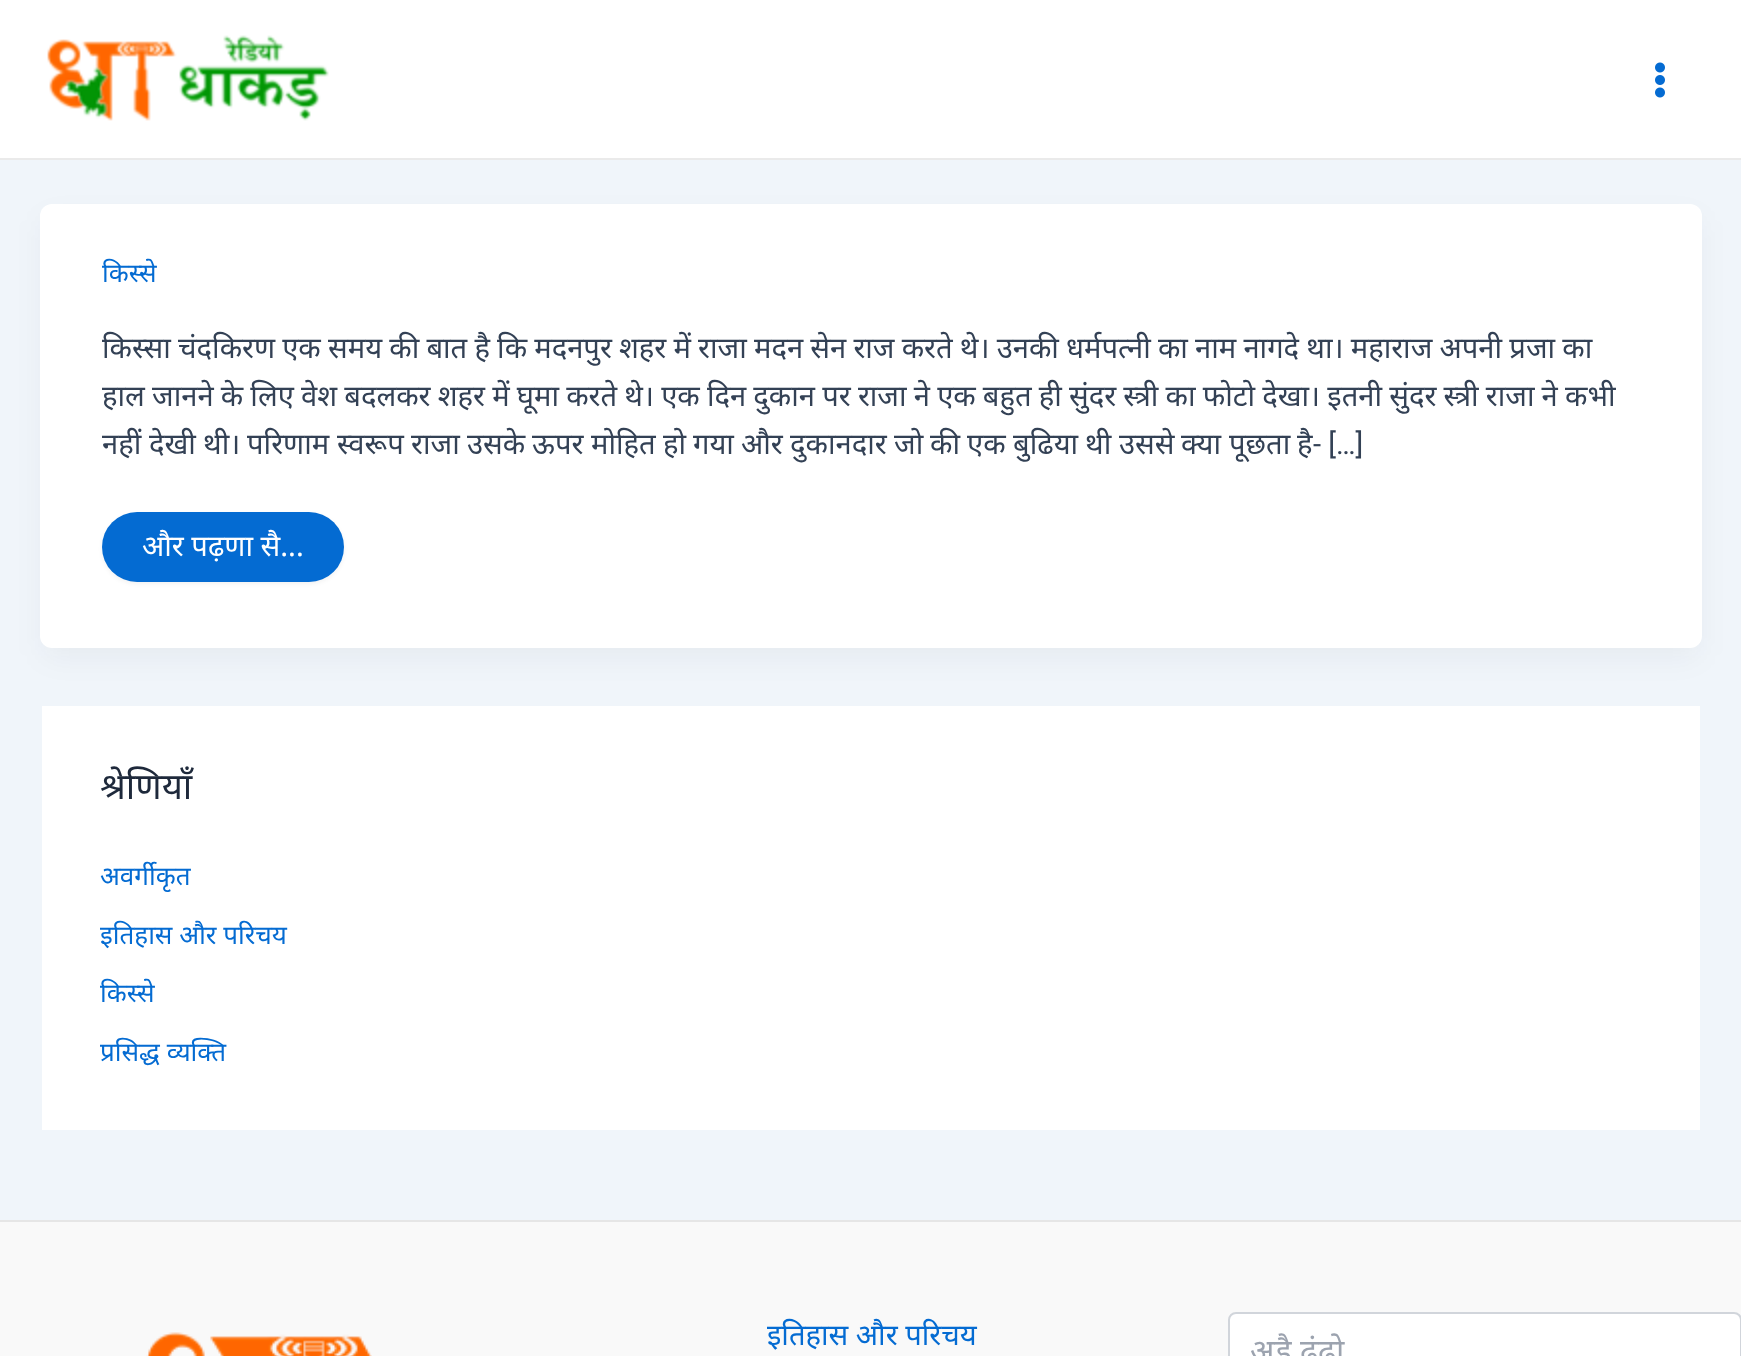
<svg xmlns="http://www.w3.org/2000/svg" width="1741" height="1356">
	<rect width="100%" height="100%" fill="#F0F5FA" />
	<rect x="0" y="0" width="1741" height="158" fill="#FFFFFF" />
	<rect x="0" y="158" width="1741" height="2" fill="#EAEAEA" />
	<image x="47" y="35" width="282" height="86" href="assets/img1.png" />
	<image x="1655" y="62" width="10" height="36" href="assets/img2.png" />
	<rect x="44" y="220" width="1654" height="436" rx="8" fill="#101828" fill-opacity="0.05" filter="blur(15px)" />
	<rect x="40" y="204" width="1662" height="444" rx="12" fill="#FFFFFF" />
	<text x="102" y="282" font-family="Noto Sans" font-size="26" fill="#046BD2">किस्से</text>
	<g font-family="Noto Sans" font-size="29.18" fill="#334155">
		<text x="102" y="358" word-spacing="-0.4">किस्सा चंदकिरण एक समय की बात है कि मदनपुर शहर में राजा मदन सेन राज करते थे। उनकी धर्मपत्नी का नाम नागदे था। महाराज अपनी प्रजा का</text>
		<text x="102" y="406" word-spacing="-0.4">हाल जानने के लिए वेश बदलकर शहर में घूमा करते थे। एक दिन दुकान पर राजा ने एक बहुत ही सुंदर स्त्री का फोटो देखा। इतनी सुंदर स्त्री राजा ने कभी</text>
		<text x="102" y="454">नहीं</text>
		<text x="149" y="454">देखी</text>
		<text x="203" y="454">थी।</text>
		<text x="247" y="454">परिणाम</text>
		<text x="337" y="454">स्वरूप</text>
		<text x="411" y="454">राजा</text>
		<text x="467" y="454">उसके</text>
		<text x="532" y="454">ऊपर</text>
		<text x="591" y="454">मोहित</text>
		<text x="663" y="454">हो</text>
		<text x="693" y="454">गया</text>
		<text x="741" y="454">और</text>
		<text x="790" y="454">दुकानदार</text>
		<text x="894" y="454">जो</text>
		<text x="930" y="454">की</text>
		<text x="967" y="454">एक</text>
		<text x="1013" y="454">बुढिया</text>
		<text x="1085" y="454">थी</text>
		<text x="1119" y="454">उससे</text>
		<text x="1181" y="454">क्या</text>
		<text x="1229" y="454">पूछता</text>
		<text x="1297" y="454">है</text>
	</g>
	<text x="1313" y="454" font-family="Roboto" font-size="29.18" fill="#334155">- […]</text>
	<rect x="102" y="514" width="242" height="70" rx="35" fill="#000000" fill-opacity="0.05" filter="blur(2px)" />
	<rect x="102" y="512" width="242" height="70" rx="35" fill="#046BD2" />
	<text x="142" y="556" font-family="Noto Sans" font-size="29.18" fill="#FFFFFF">और पढ़णा सै...</text>
	<rect x="42" y="706" width="1658" height="424" fill="#FFFFFF" />
	<text x="100" y="799" font-family="Noto Sans" font-size="36.5" fill="#1E293B">श्रेणियाँ</text>
	<g font-family="Noto Sans" font-size="26" fill="#046BD2">
		<text x="100" y="885">अवर्गीकृत</text>
		<text x="100" y="944">इतिहास और परिचय</text>
		<text x="100" y="1002">किस्से</text>
		<text x="100" y="1061">प्रसिद्ध व्यक्ति</text>
	</g>
	<rect x="0" y="1222" width="1741" height="134" fill="#F9F9F9" />
	<rect x="0" y="1220" width="1741" height="2" fill="#E6E6E6" />
	<image x="146" y="1332" width="226" height="24" href="assets/img3.png" />
	<text x="767" y="1345" font-family="Noto Sans" font-size="29.18" fill="#046BD2">इतिहास और परिचय</text>
	<rect x="1229" y="1313" width="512" height="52" rx="7" fill="#FFFFFF" stroke="#D1D5DB" stroke-width="2" />
	<text x="1250" y="1362" font-family="Noto Sans" font-size="32" fill="#9CA3AF">अड़ै ढूंढो</text>
</svg>
